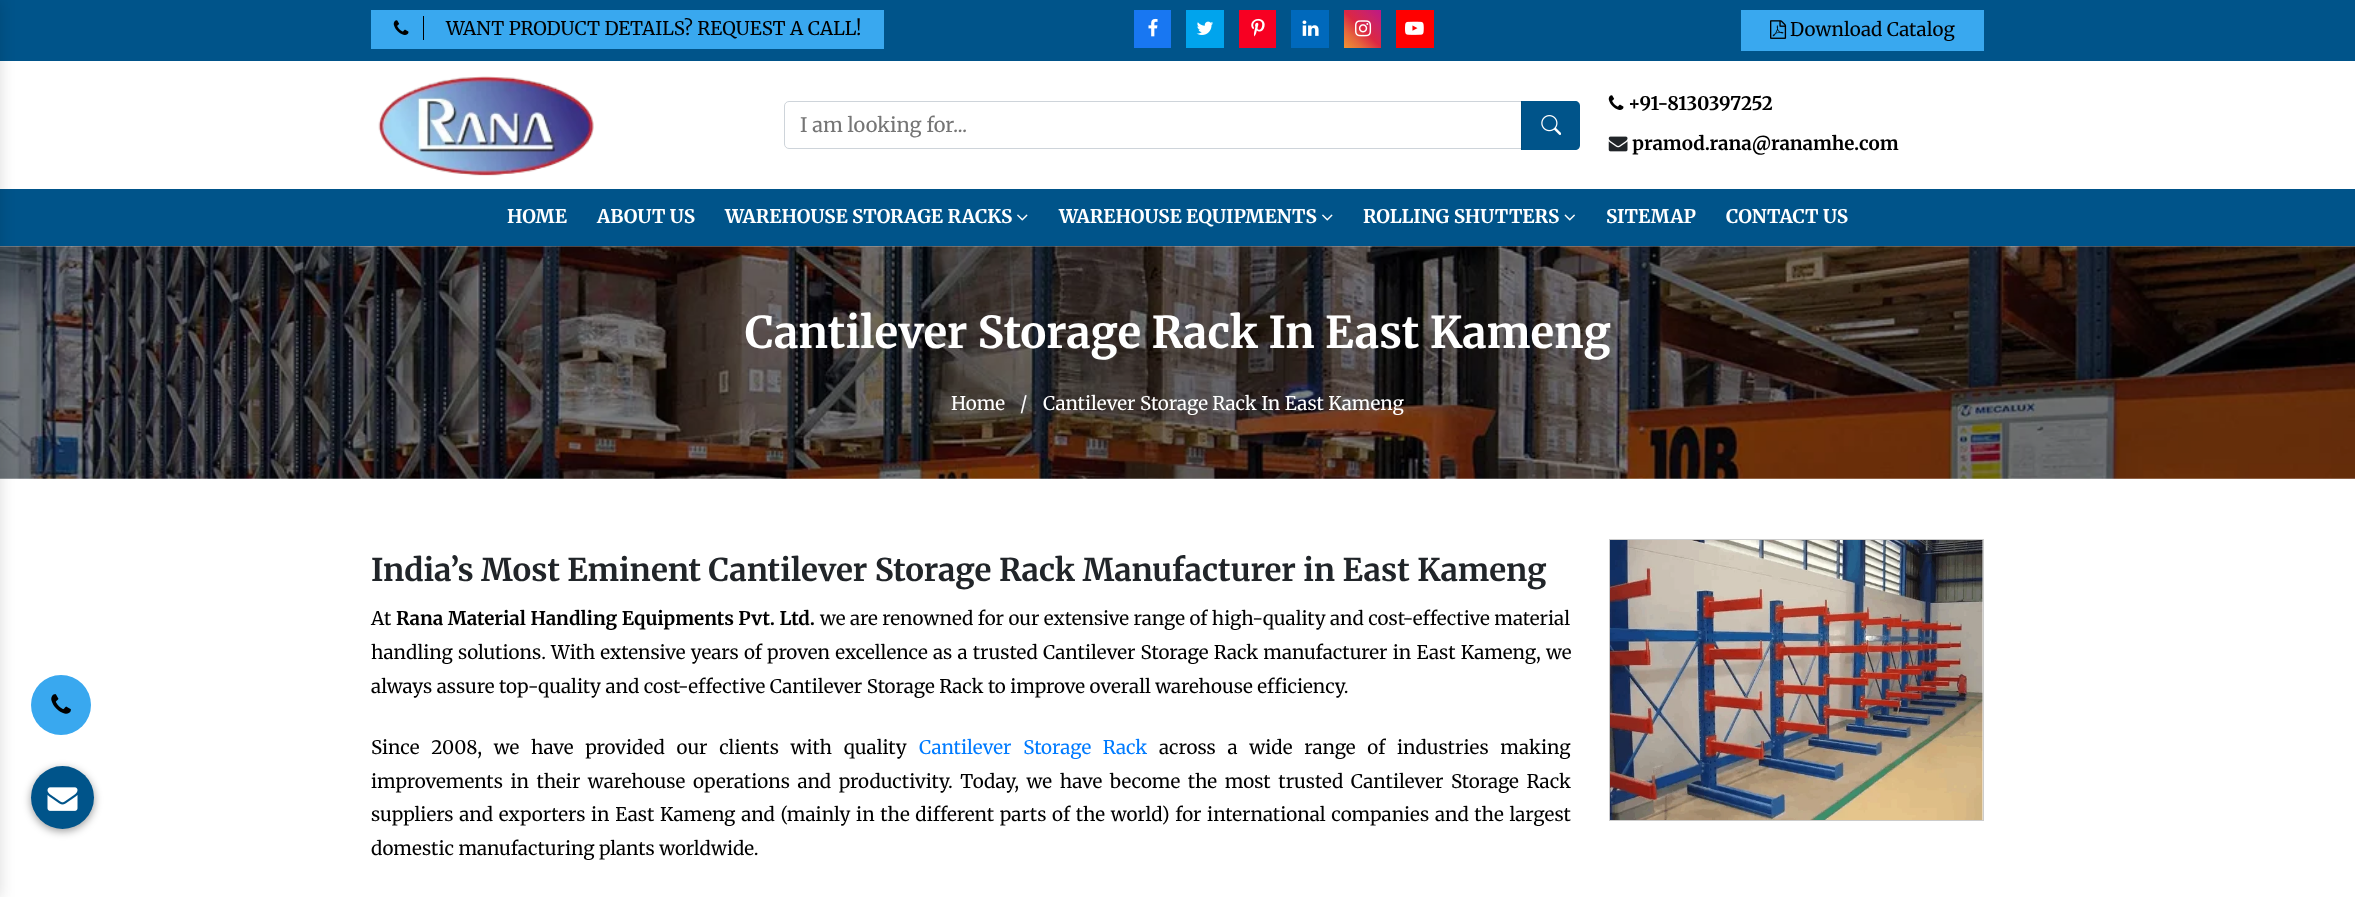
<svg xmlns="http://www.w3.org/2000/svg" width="2355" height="897">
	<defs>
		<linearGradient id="g1" gradientUnits="userSpaceOnUse" x1="1344" y1="48" x2="1381" y2="10"><stop offset="0" stop-color="#F09433" /><stop offset="0.25" stop-color="#E6683C" /><stop offset="0.5" stop-color="#DC2743" /><stop offset="0.75" stop-color="#CC2366" /><stop offset="1" stop-color="#BC1888" /></linearGradient>
	</defs>
	<rect width="100%" height="100%" fill="#FFFFFF" />
	<rect x="0" y="0" width="2355" height="61" fill="#00548A" />
	<rect x="0" y="189" width="2355" height="57" fill="#00548A" />
	<image x="0" y="246" width="2355" height="233" href="assets/img16.png" />
	<rect x="-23" y="0" width="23" height="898" fill="#000000" fill-opacity="0.14" filter="blur(7.5px)" />
	<circle cx="61" cy="705" r="30" fill="#39A8EF" />
	<image x="51" y="694" width="20" height="20" href="assets/img1.png" />
	<rect x="371" y="10" width="513" height="39" fill="#39A8EF" />
	<rect x="423" y="16" width="1" height="24" fill="#000000" />
	<image x="393" y="20" width="16" height="15" href="assets/img2.png" />
	<text x="446" y="35" font-family="Merriweather" font-size="18.75" fill="#000000">WANT PRODUCT DETAILS? REQUEST A CALL!</text>
	<rect x="1134" y="10" width="37" height="38" fill="#1877F2" />
	<image x="1148" y="18" width="10" height="19" href="assets/img3.png" />
	<rect x="1186" y="10" width="38" height="38" fill="#00A4ED" />
	<image x="1196" y="21" width="17" height="14" href="assets/img4.png" />
	<rect x="1239" y="10" width="37" height="38" fill="#F70022" />
	<image x="1251" y="18" width="14" height="19" href="assets/img5.png" />
	<rect x="1291" y="10" width="38" height="38" fill="#0069BC" />
	<image x="1302" y="20" width="17" height="16" href="assets/img6.png" />
	<rect x="1344" y="10" width="37" height="38" fill="url(#g1)" />
	<image x="1355" y="20" width="17" height="17" href="assets/img7.png" />
	<rect x="1396" y="10" width="38" height="38" fill="#FF0000" />
	<image x="1405" y="21" width="19" height="14" href="assets/img8.png" />
	<rect x="1741" y="10" width="243" height="41" fill="#39A8EF" />
	<image x="1770" y="20" width="17" height="19" href="assets/img9.png" />
	<text x="1790" y="36" font-family="Merriweather" font-size="18.75" fill="#000000">Download Catalog</text>
	<image x="378" y="76" width="216" height="100" href="assets/img10.png" />
	<rect x="784.5" y="101.5" width="786" height="47" rx="4.5" fill="none" stroke="#CED4DA" />
	<text x="800" y="132" font-family="Merriweather" font-size="20" fill="#757575">I am looking for...</text>
	<path d="M1521 101H1575C1578 101 1580 103 1580 106V145C1580 148 1578 150 1575 150H1521Z" fill="#00548A" />
	<rect x="1521" y="101" width="1" height="49" fill="#004C7C" />
	<image x="1541" y="115" width="20" height="20" href="assets/img11.png" />
	<image x="1608" y="95" width="16" height="15" href="assets/img12.png" />
	<text x="1628" y="110" font-family="Merriweather" font-size="18.75" font-weight="700" fill="#000000">+91-8130397252</text>
	<image x="1608" y="136" width="20" height="16" href="assets/img13.png" />
	<text x="1632" y="150" font-family="Merriweather" font-size="18.75" font-weight="700" fill="#000000">pramod.rana@ranamhe.com</text>
	<g font-family="Merriweather" font-size="18.75" font-weight="700" fill="#FFFFFF">
		<text x="507" y="223">HOME</text>
		<text x="597" y="223">ABOUT US</text>
		<text x="725" y="223">WAREHOUSE STORAGE RACKS</text>
	</g>
	<image x="1017" y="214" width="11" height="7" href="assets/img14.png" />
	<text x="1059" y="223" font-family="Merriweather" font-size="18.75" font-weight="700" fill="#FFFFFF">WAREHOUSE EQUIPMENTS</text>
	<image x="1322" y="214" width="11" height="7" href="assets/img14.png" />
	<text x="1363" y="223" font-family="Merriweather" font-size="18.75" font-weight="700" fill="#FFFFFF">ROLLING SHUTTERS</text>
	<image x="1564" y="214" width="11" height="7" href="assets/img15.png" />
	<g font-family="Merriweather" font-size="18.75" font-weight="700" fill="#FFFFFF">
		<text x="1606" y="223">SITEMAP</text>
		<text x="1726" y="223">CONTACT US</text>
	</g>
	<text x="745" y="348" font-family="Merriweather" font-size="43.75" font-weight="700" fill="#FFFFFF">Cantilever Storage Rack In East Kameng</text>
	<g font-family="Merriweather" font-size="18.75" fill="#FFFFFF">
		<text x="951" y="410">Home</text>
		<text x="1020" y="410">/</text>
		<text x="1043" y="410">Cantilever Storage Rack In East Kameng</text>
	</g>
	<text x="371" y="581" font-family="Merriweather" font-size="31.25" font-weight="700" fill="#212529">India’s Most Eminent Cantilever Storage Rack Manufacturer in East Kameng</text>
	<text x="371" y="625" font-family="Merriweather" font-size="18.75" fill="#000000">At</text>
	<text x="396" y="625" font-family="Merriweather" font-size="18.75" font-weight="700" fill="#000000">Rana Material Handling Equipments Pvt. Ltd.</text>
	<g font-family="Merriweather" font-size="18.75" fill="#000000">
		<text x="820" y="625">we are renowned for our extensive range of high-quality and cost-effective material</text>
		<text x="371" y="659" word-spacing="0.75">handling solutions. With extensive years of proven excellence as a trusted Cantilever Storage Rack manufacturer in East Kameng, we</text>
		<text x="371" y="693">always assure top-quality and cost-effective Cantilever Storage Rack to improve overall warehouse efficiency.</text>
		<text x="371" y="754" word-spacing="7.25">Since 2008, we have provided our clients with quality</text>
	</g>
	<text x="919" y="754" word-spacing="7.25" font-family="Merriweather" font-size="18.75" fill="#007BFF">Cantilever Storage Rack</text>
	<g font-family="Merriweather" font-size="18.75" fill="#000000">
		<text x="1159" y="754" word-spacing="7.25">across a wide range of industries making</text>
		<text x="371" y="788" word-spacing="3.1">improvements in their warehouse operations and productivity. Today, we have become the most trusted Cantilever Storage Rack</text>
		<text x="371" y="821" word-spacing="1.25">suppliers and exporters in East Kameng and (mainly in the different parts of the world) for international companies and the largest</text>
		<text x="371" y="855">domestic manufacturing plants worldwide.</text>
	</g>
	<rect x="1609.5" y="539.5" width="374" height="281" fill="none" stroke="#CCCCCC" />
	<image x="1610" y="540" width="373" height="280" href="assets/img17.png" />
	<rect x="31" y="769" width="63" height="62" rx="31" fill="#000000" fill-opacity="0.4" filter="blur(4px)" />
	<circle cx="62.5" cy="797.5" r="31.5" fill="#00548A" />
	<image x="47" y="787" width="31" height="24" href="assets/img18.png" />
</svg>
